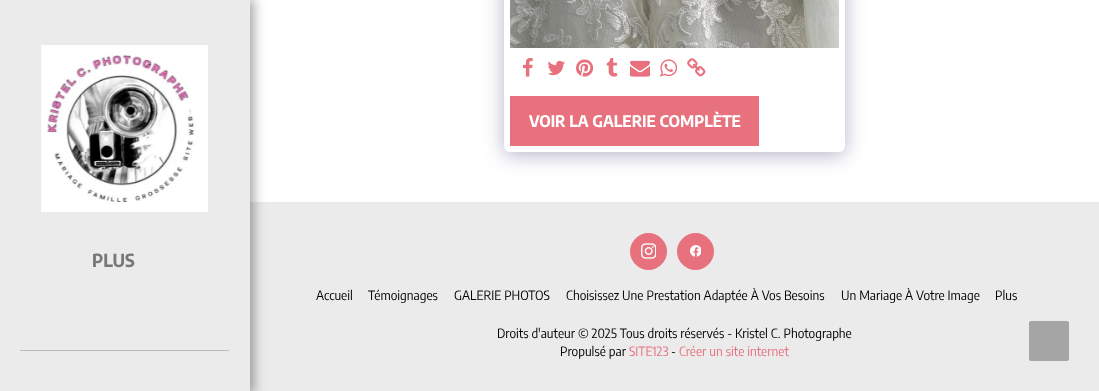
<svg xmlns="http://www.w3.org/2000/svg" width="1099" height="391">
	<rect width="100%" height="100%" fill="#FFFFFF" />
	<rect x="250" y="202" width="849" height="189" fill="#EBEBEB" />
	<rect x="0" y="-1" width="254" height="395" fill="#000000" fill-opacity="0.35" filter="blur(6px)" />
	<rect x="0" y="0" width="250" height="391" fill="#EBEBEB" />
	<image x="41" y="45" width="167" height="167" href="assets/img1.png" />
	<text x="92" y="267" font-family="Encode Sans Semi Condensed" font-size="18" font-weight="700" fill="#777777">PLUS</text>
	<rect x="20" y="350" width="209" height="1" fill="#BCBCBC" />
	<rect x="504" y="-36" width="341" height="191" rx="6" fill="#4D3F7A" fill-opacity="0.4" filter="blur(10px)" />
	<rect x="504" y="-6" width="341" height="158" rx="6" fill="#FFFFFF" />
	<image x="510" y="0" width="329" height="48" href="assets/img2.png" />
	<image x="523" y="58" width="10" height="19" href="assets/img3.png" />
	<image x="547" y="60" width="18" height="16" href="assets/img4.png" />
	<image x="576" y="59" width="17" height="18" href="assets/img5.png" />
	<image x="606" y="58" width="12" height="19" href="assets/img6.png" />
	<image x="630" y="60" width="20" height="17" href="assets/img7.png" />
	<image x="660" y="59" width="17" height="18" href="assets/img8.png" />
	<image x="687" y="58" width="19" height="19" href="assets/img9.png" />
	<rect x="510" y="96" width="249" height="50" fill="#E7717D" />
	<text x="529" y="127" font-family="Encode Sans Semi Condensed" font-size="16" font-weight="700" fill="#FFFFFF">VOIR LA GALERIE COMPLÈTE</text>
	<circle cx="648.5" cy="251.5" r="18" fill="#E7717D" stroke="#E7717D" />
	<image x="641" y="243" width="15" height="16" href="assets/img10.png" />
	<circle cx="695.5" cy="251.5" r="18" fill="#E7717D" stroke="#E7717D" />
	<image x="690" y="245" width="11" height="12" href="assets/img11.png" />
	<g font-family="Encode Sans Semi Condensed" font-size="12.8" fill="#000000">
		<text x="316" y="300">Accueil</text>
		<text x="368" y="300">Témoignages</text>
		<text x="454" y="300">GALERIE PHOTOS</text>
		<text x="566" y="300">Choisissez Une Prestation Adaptée À Vos Besoins</text>
		<text x="841" y="300">Un Mariage À Votre Image</text>
		<text x="995" y="300">Plus</text>
		<text x="497" y="338">Droits d'auteur © 2025 Tous droits réservés - Kristel C. Photographe</text>
		<text x="560" y="356">Propulsé par</text>
	</g>
	<text x="629" y="356" font-family="Encode Sans Semi Condensed" font-size="12.8" fill="#E7717D">SITE123</text>
	<text x="671" y="356" font-family="Encode Sans Semi Condensed" font-size="12.8" fill="#000000">-</text>
	<text x="679" y="356" font-family="Encode Sans Semi Condensed" font-size="12.8" fill="#E7717D">Créer un site internet</text>
	<rect x="1029" y="321" width="40" height="40" rx="2" fill="#A5A5A5" />
</svg>
